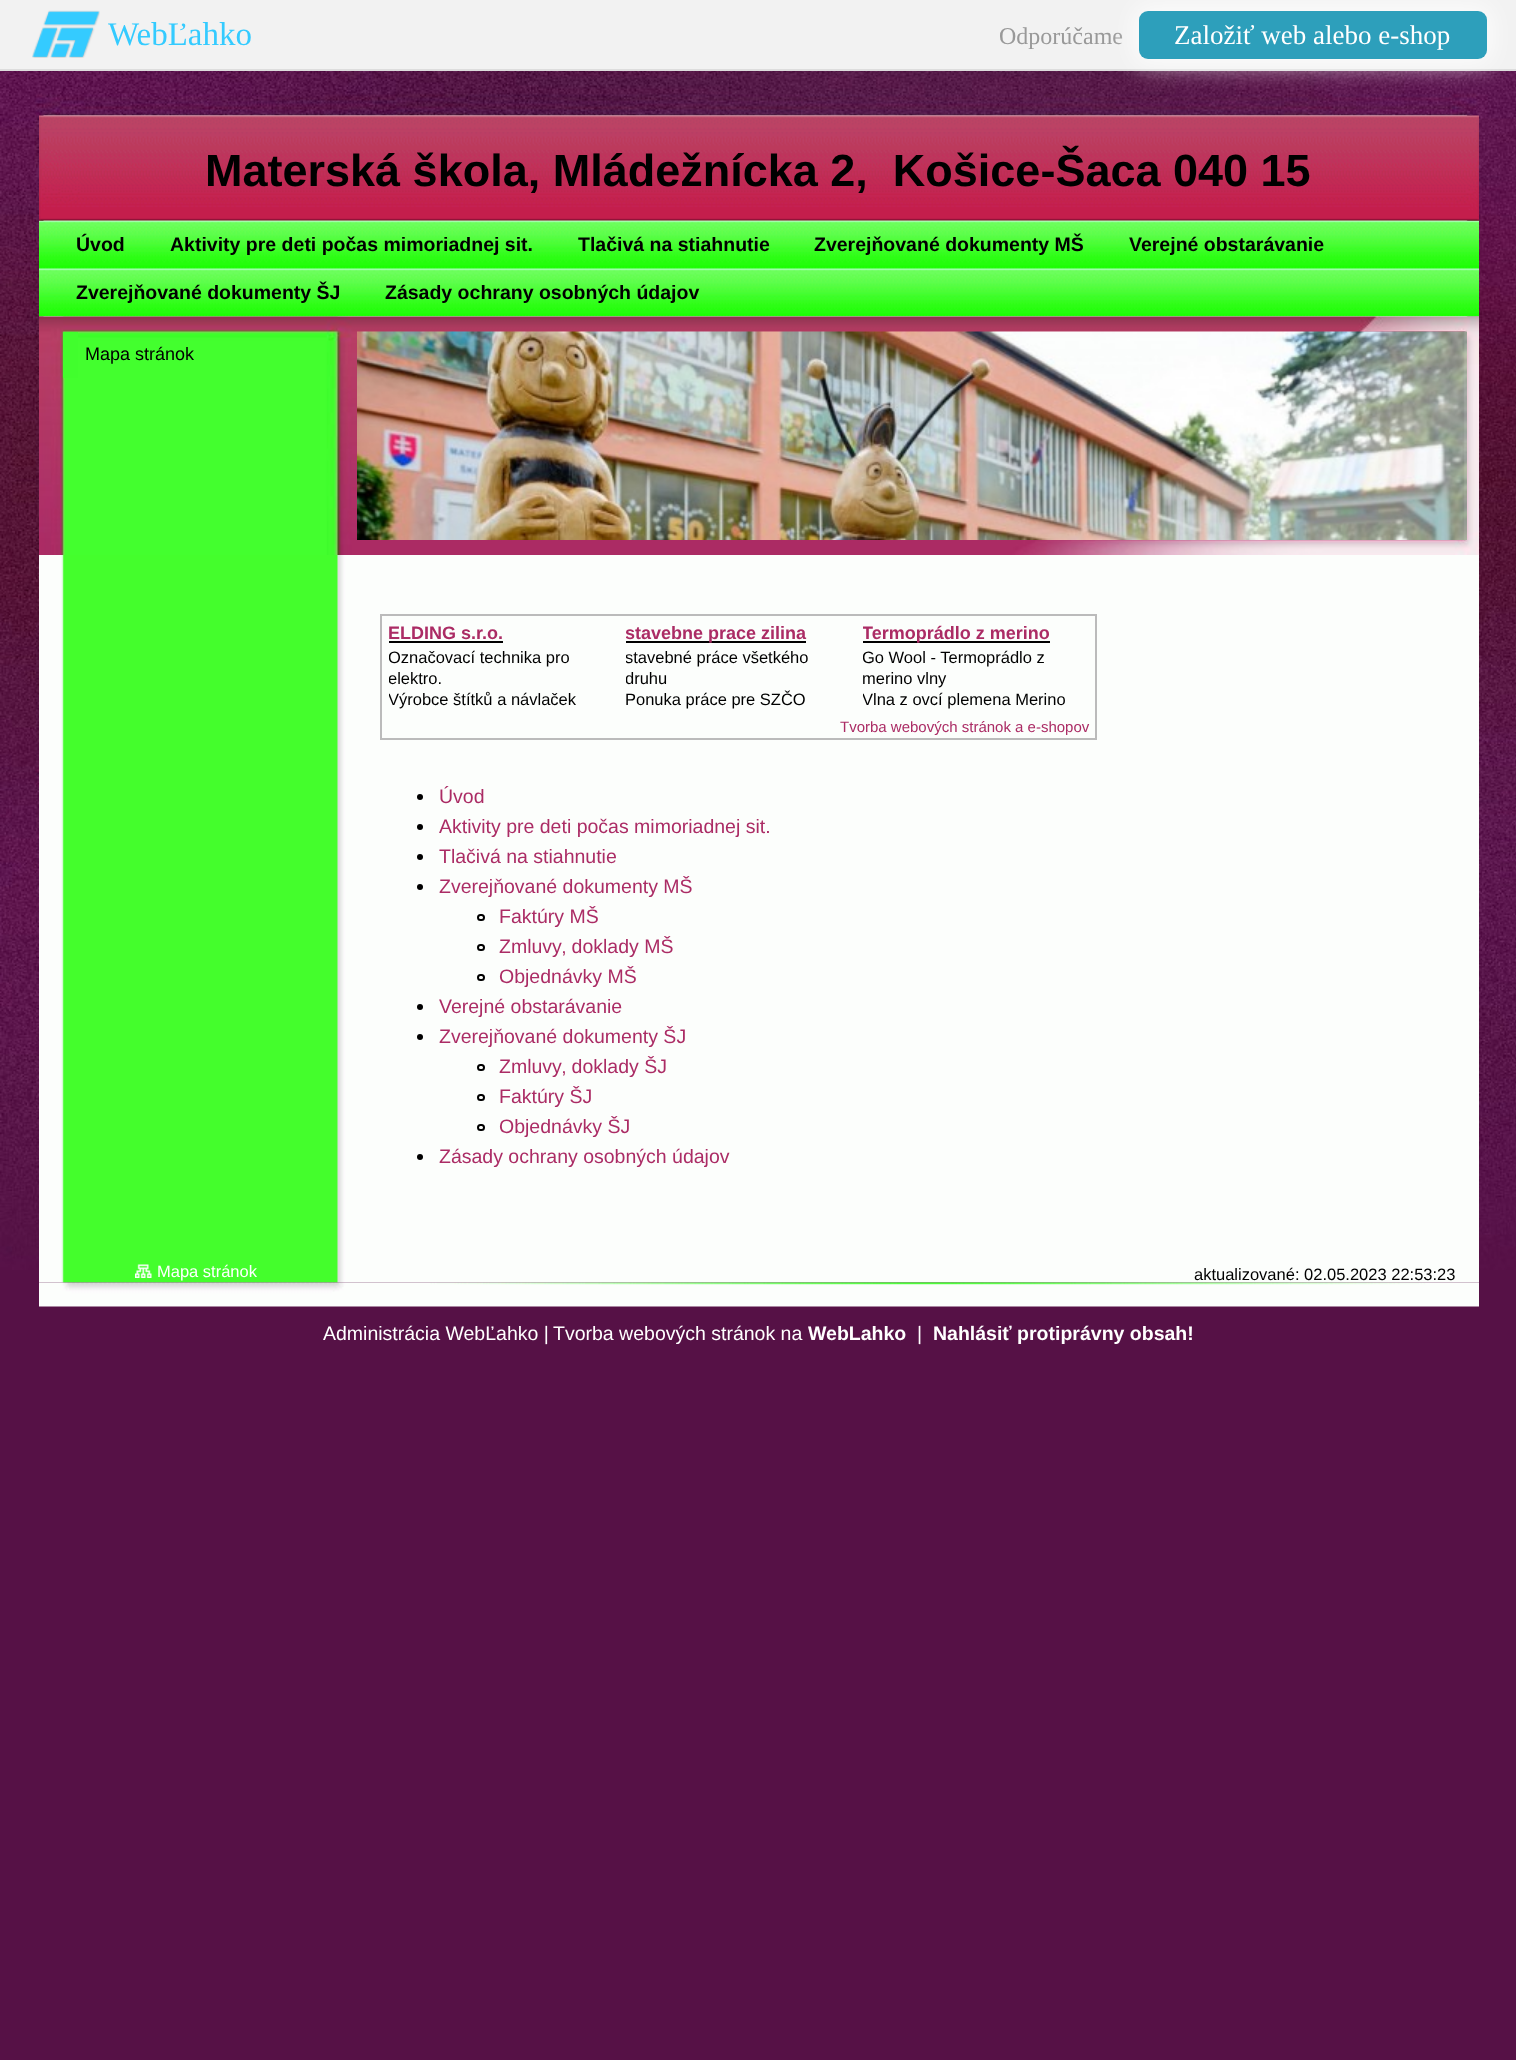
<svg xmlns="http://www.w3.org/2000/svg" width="1516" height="2060">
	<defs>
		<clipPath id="clip1"><rect x="389" y="623" width="222" height="87" /></clipPath>
		<clipPath id="clip2"><rect x="626" y="623" width="222" height="24" /></clipPath>
		<clipPath id="clip3"><rect x="626" y="623" width="222" height="87" /></clipPath>
		<clipPath id="clip4"><rect x="863" y="623" width="222" height="24" /></clipPath>
		<clipPath id="clip5"><rect x="863" y="623" width="222" height="87" /></clipPath>
	</defs>
	<rect width="100%" height="100%" fill="#561146" />
	<rect x="0" y="0" width="1516" height="69" fill="#F2F2F2" />
	<rect x="0" y="69" width="1516" height="2" fill="#DDDDDD" />
	<image x="32" y="10" width="68" height="48" href="assets/img1.png" />
	<text x="108" y="45" font-family="Liberation Serif" font-size="33" fill="#34CBFF">WebĽahko</text>
	<text x="999" y="44" font-family="Liberation Serif" font-size="24" fill="#999999">Odporúčame</text>
	<image x="0" y="71" width="1516" height="1199" href="assets/img2.png" />
	<rect x="1133" y="5" width="360" height="60" rx="15" fill="#FFFFFF" fill-opacity="0.75" filter="blur(12px)" />
	<rect x="1139" y="11" width="348" height="48" rx="9" fill="#2D9FBB" />
	<text x="1174" y="44" font-family="Liberation Serif" font-size="27" fill="#FFFFFF">Založiť web alebo e-shop</text>
	<image x="39" y="316" width="1440" height="967" href="assets/img5.png" />
	<image x="39" y="220" width="1440" height="97" href="assets/img4.png" />
	<image x="39" y="115" width="1440" height="106" href="assets/img3.png" />
	<text x="205" y="186" font-family="Liberation Sans" font-size="45" font-weight="700" fill="#000000" xml:space="preserve">Materská škola‚ Mládežnícka 2‚  Košice-Šaca 040 15</text>
	<g font-family="Liberation Sans" font-size="19.5" font-weight="700" fill="#000000">
		<text x="76" y="251">Úvod</text>
		<text x="170" y="251">Aktivity pre deti počas mimoriadnej sit.</text>
		<text x="578" y="251">Tlačivá na stiahnutie</text>
		<text x="814" y="251">Zverejňované dokumenty MŠ</text>
		<text x="1129" y="251">Verejné obstarávanie</text>
		<text x="76" y="299">Zverejňované dokumenty ŠJ</text>
		<text x="385" y="299">Zásady ochrany osobných údajov</text>
	</g>
	<image x="39" y="316" width="1440" height="239" href="assets/img6.png" />
	<rect x="63" y="332" width="15" height="46" fill="#41FE2D" />
	<text x="85" y="360" font-family="Liberation Sans" font-size="18" fill="#000000">Mapa stránok</text>
	<image x="357" y="331" width="1110" height="209" href="assets/img7.png" />
	<rect x="381" y="615" width="715" height="124" fill="none" stroke="#BBBBBB" stroke-width="2" />
	<text x="388" y="639" font-family="Liberation Sans" font-size="18" font-weight="700" fill="#AB2C65">ELDING s.r.o.</text>
	<rect x="389" y="641" width="114" height="2" fill="#000000" />
	<g clip-path="url(#clip1)">
		<g font-family="Liberation Sans" font-size="16.5" fill="#000000">
			<text x="388" y="663">Označovací technika pro</text>
			<text x="388" y="684">elektro.</text>
			<text x="388" y="705">Výrobce štítků a návlaček</text>
		</g>
	</g>
	<rect x="626" y="641" width="180" height="2" fill="#000000" />
	<g clip-path="url(#clip2)">
		<text x="625" y="639" font-family="Liberation Sans" font-size="18" font-weight="700" fill="#AB2C65">stavebne prace zilina</text>
	</g>
	<g clip-path="url(#clip3)">
		<g font-family="Liberation Sans" font-size="16.5" fill="#000000">
			<text x="625" y="663">stavebné práce všetkého</text>
			<text x="625" y="684">druhu</text>
		</g>
	</g>
	<text x="625" y="705" font-family="Liberation Sans" font-size="16.5" fill="#000000">Ponuka práce pre SZČO</text>
	<rect x="863" y="641" width="187" height="2" fill="#000000" />
	<g clip-path="url(#clip4)">
		<text x="862" y="639" font-family="Liberation Sans" font-size="18" font-weight="700" fill="#AB2C65">Termoprádlo z merino</text>
	</g>
	<g clip-path="url(#clip5)">
		<g font-family="Liberation Sans" font-size="16.5" fill="#000000">
			<text x="862" y="663">Go Wool - Termoprádlo z</text>
			<text x="862" y="684">merino vlny</text>
			<text x="862" y="705">Vlna z ovcí plemena Merino</text>
		</g>
	</g>
	<text x="840" y="732" font-family="Liberation Sans" font-size="15" fill="#AB2C65">Tvorba webových stránok a e-shopov</text>
	<circle cx="420" cy="797" r="3" fill="#000000" />
	<text x="439" y="803" font-family="Liberation Sans" font-size="19.5" fill="#AB2C65">Úvod</text>
	<circle cx="420" cy="827" r="3" fill="#000000" />
	<text x="439" y="833" font-family="Liberation Sans" font-size="19.5" fill="#AB2C65">Aktivity pre deti počas mimoriadnej sit.</text>
	<circle cx="420" cy="857" r="3" fill="#000000" />
	<text x="439" y="863" font-family="Liberation Sans" font-size="19.5" fill="#AB2C65">Tlačivá na stiahnutie</text>
	<circle cx="420" cy="887" r="3" fill="#000000" />
	<text x="439" y="893" font-family="Liberation Sans" font-size="19.5" fill="#AB2C65">Zverejňované dokumenty MŠ</text>
	<rect x="478" y="915" width="6" height="5" rx="2.5" fill="none" stroke="#000000" stroke-width="2" />
	<text x="499" y="923" font-family="Liberation Sans" font-size="19.5" fill="#AB2C65">Faktúry MŠ</text>
	<rect x="478" y="945" width="6" height="5" rx="2.5" fill="none" stroke="#000000" stroke-width="2" />
	<text x="499" y="953" font-family="Liberation Sans" font-size="19.5" fill="#AB2C65">Zmluvy‚ doklady MŠ</text>
	<rect x="478" y="975" width="6" height="5" rx="2.5" fill="none" stroke="#000000" stroke-width="2" />
	<text x="499" y="983" font-family="Liberation Sans" font-size="19.5" fill="#AB2C65">Objednávky MŠ</text>
	<circle cx="420" cy="1007" r="3" fill="#000000" />
	<text x="439" y="1013" font-family="Liberation Sans" font-size="19.5" fill="#AB2C65">Verejné obstarávanie</text>
	<circle cx="420" cy="1037" r="3" fill="#000000" />
	<text x="439" y="1043" font-family="Liberation Sans" font-size="19.5" fill="#AB2C65">Zverejňované dokumenty ŠJ</text>
	<rect x="478" y="1065" width="6" height="5" rx="2.5" fill="none" stroke="#000000" stroke-width="2" />
	<text x="499" y="1073" font-family="Liberation Sans" font-size="19.5" fill="#AB2C65">Zmluvy‚ doklady ŠJ</text>
	<rect x="478" y="1095" width="6" height="5" rx="2.5" fill="none" stroke="#000000" stroke-width="2" />
	<text x="499" y="1103" font-family="Liberation Sans" font-size="19.5" fill="#AB2C65">Faktúry ŠJ</text>
	<rect x="478" y="1125" width="6" height="5" rx="2.5" fill="none" stroke="#000000" stroke-width="2" />
	<text x="499" y="1133" font-family="Liberation Sans" font-size="19.5" fill="#AB2C65">Objednávky ŠJ</text>
	<circle cx="420" cy="1157" r="3" fill="#000000" />
	<text x="439" y="1163" font-family="Liberation Sans" font-size="19.5" fill="#AB2C65">Zásady ochrany osobných údajov</text>
	<image x="135" y="1264" width="17" height="14" href="assets/img8.png" />
	<text x="157" y="1277" font-family="Liberation Sans" font-size="16.5" fill="#FFFFFF">Mapa stránok</text>
	<text x="1194" y="1280" font-family="Liberation Sans" font-size="16.5" fill="#000000">aktualizované: 02.05.2023 22:53:23</text>
	<image x="39" y="1282" width="1440" height="25" href="assets/img9.png" />
	<g font-family="Liberation Sans" font-size="19.5" fill="#FFFFFF">
		<text x="323" y="1340">Administrácia WebĽahko |</text>
		<text x="553" y="1340">Tvorba webových stránok na</text>
	</g>
	<text x="808" y="1340" font-family="Liberation Sans" font-size="19.5" font-weight="700" fill="#FFFFFF">WebLahko</text>
	<text x="917" y="1340" font-family="Liberation Sans" font-size="19.5" fill="#FFFFFF">|</text>
	<text x="933" y="1340" font-family="Liberation Sans" font-size="19.5" font-weight="700" fill="#FFFFFF">Nahlásiť protiprávny obsah!</text>
</svg>
